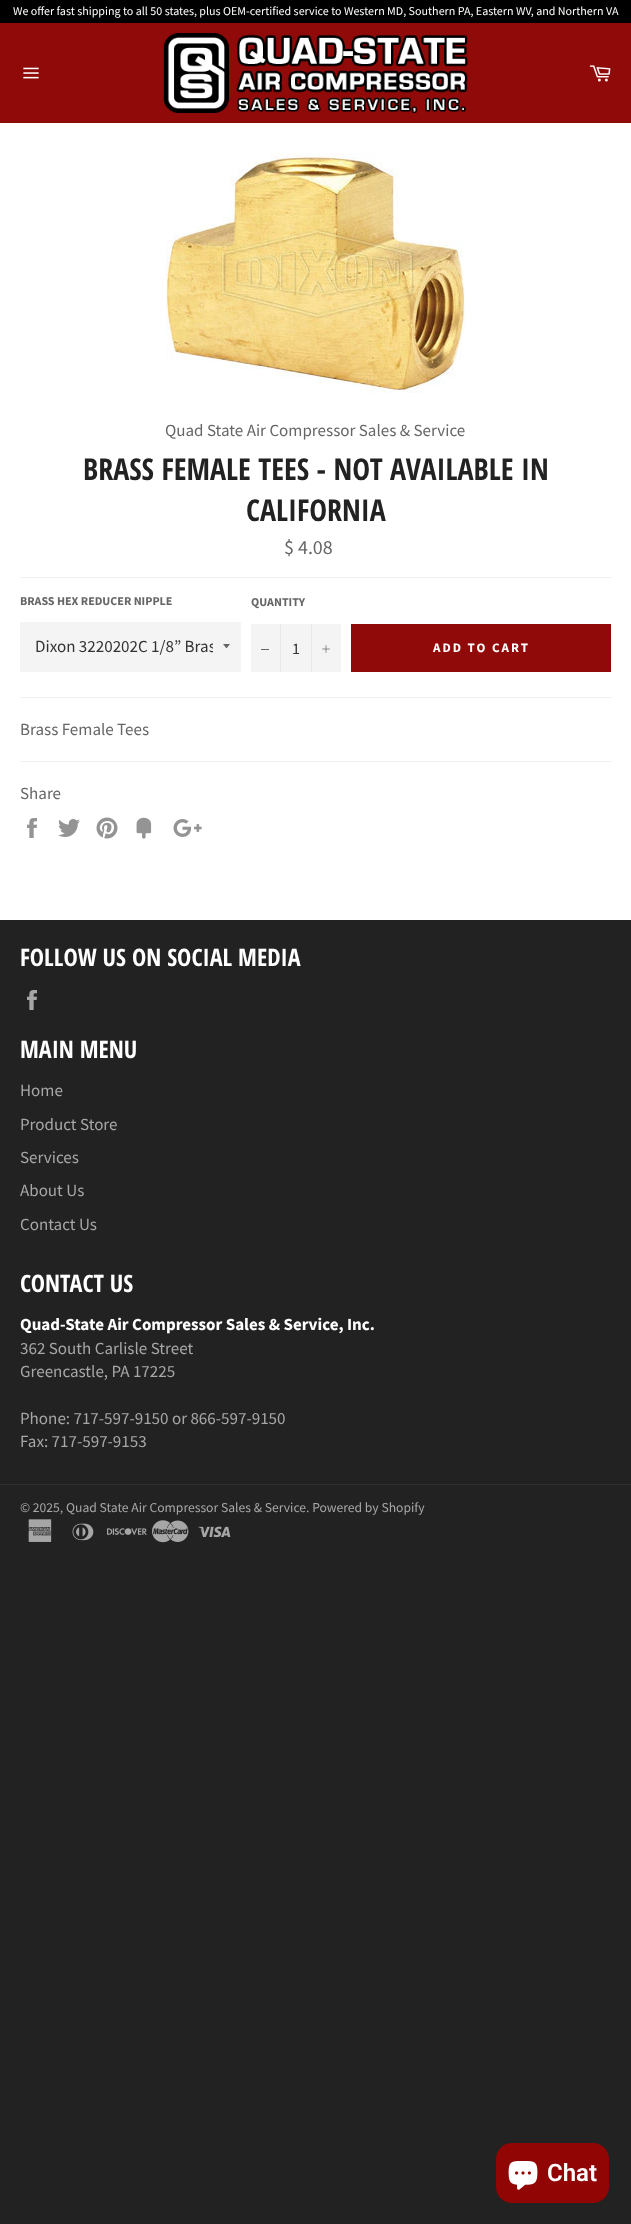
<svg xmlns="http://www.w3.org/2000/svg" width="631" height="2224">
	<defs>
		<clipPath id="clip1"><rect x="35" y="635" width="178" height="24" /></clipPath>
	</defs>
	<rect width="100%" height="100%" fill="#222222" />
	<rect x="0" y="0" width="631" height="23" fill="#000000" />
	<text x="13" y="15" font-family="Source Sans Pro" font-size="12" fill="#FFFFFF">We offer fast shipping to all 50 states, plus OEM-certified service to Western MD, Southern PA, Eastern WV, and Northern VA</text>
	<rect x="0" y="123" width="631" height="797" fill="#FFFFFF" />
	<rect x="0" y="23" width="631" height="100" fill="#910A0A" />
	<image x="23" y="67" width="16" height="12" href="assets/img1.png" />
	<image x="163" y="33" width="305" height="80" href="assets/img2.png" />
	<image x="589" y="65" width="22" height="17" href="assets/img3.png" />
	<image x="166" y="153" width="300" height="240" href="assets/img4.png" />
	<text x="165" y="436" font-family="Source Sans Pro" font-size="17" fill="#666666">Quad State Air Compressor Sales &amp; Service</text>
	<g font-family="Open Sans Condensed" font-size="30" font-weight="700" fill="#222222">
		<text x="83" y="480">BRASS FEMALE TEES - NOT AVAILABLE IN</text>
		<text x="246" y="521">CALIFORNIA</text>
	</g>
	<text x="284" y="554" font-family="Source Sans Pro" font-size="20" fill="#666666">$ 4.08</text>
	<rect x="20" y="577" width="591" height="1" fill="#F0F0F0" />
	<text x="20" y="605" font-family="Source Sans Pro" font-size="12" font-weight="700" fill="#666666">BRASS HEX REDUCER NIPPLE</text>
	<rect x="20" y="622" width="221" height="50" fill="#F4F4F4" />
	<path d="M223 644C227.5 649.5 225.5 649.5 230 644Z" fill="#666666" />
	<g clip-path="url(#clip1)">
		<text x="35" y="652" font-family="Source Sans Pro" font-size="17" fill="#333333">Dixon 3220202C 1/8” Bras</text>
	</g>
	<text x="251" y="606" font-family="Source Sans Pro" font-size="12" font-weight="700" fill="#666666">QUANTITY</text>
	<rect x="251" y="624" width="90" height="48" fill="#F4F4F4" />
	<rect x="280" y="624" width="1" height="48" fill="#E7E7E7" />
	<rect x="261" y="649" width="8" height="1" fill="#666666" />
	<text x="292" y="654" font-family="Source Sans Pro" font-size="16" fill="#333333">1</text>
	<rect x="311" y="624" width="1" height="48" fill="#E7E7E7" />
	<image x="322" y="645" width="8" height="8" href="assets/img5.png" />
	<rect x="351" y="624" width="260" height="48" fill="#910A0A" />
	<text x="433" y="652" font-family="Source Sans Pro" font-size="13" font-weight="700" letter-spacing="2" fill="#FFFFFF">ADD TO CART</text>
	<rect x="20" y="697" width="591" height="1" fill="#F0F0F0" />
	<text x="20" y="735" font-family="Source Sans Pro" font-size="17" fill="#666666">Brass Female Tees</text>
	<rect x="20" y="761" width="591" height="1" fill="#F0F0F0" />
	<text x="20" y="799" font-family="Source Sans Pro" font-size="17" fill="#666666">Share</text>
	<image x="27" y="818" width="10" height="20" href="assets/img6.png" />
	<image x="58" y="819" width="22" height="18" href="assets/img7.png" />
	<image x="96" y="817" width="22" height="22" href="assets/img8.png" />
	<image x="136" y="817" width="16" height="22" href="assets/img9.png" />
	<image x="173" y="819" width="29" height="18" href="assets/img10.png" />
	<text x="20" y="966" font-family="Open Sans Condensed" font-size="24" font-weight="700" fill="#FFFFFF">FOLLOW US ON SOCIAL MEDIA</text>
	<image x="27" y="990" width="10" height="20" href="assets/img11.png" />
	<text x="20" y="1058" font-family="Open Sans Condensed" font-size="24" font-weight="700" fill="#FFFFFF">MAIN MENU</text>
	<g font-family="Source Sans Pro" font-size="17" fill="#A7A7A7">
		<text x="20" y="1096">Home</text>
		<text x="20" y="1130">Product Store</text>
		<text x="20" y="1163">Services</text>
		<text x="20" y="1196">About Us</text>
		<text x="20" y="1230">Contact Us</text>
	</g>
	<text x="20" y="1292" font-family="Open Sans Condensed" font-size="24" font-weight="700" fill="#FFFFFF">CONTACT US</text>
	<text x="20" y="1330" font-family="Source Sans Pro" font-size="17" font-weight="700" fill="#FFFFFF">Quad-State Air Compressor Sales &amp; Service, Inc.</text>
	<g font-family="Source Sans Pro" font-size="17" fill="#A7A7A7">
		<text x="20" y="1354">362 South Carlisle Street</text>
		<text x="20" y="1377">Greencastle, PA 17225</text>
		<text x="20" y="1424">Phone: 717-597-9150 or 866-597-9150</text>
		<text x="20" y="1447">Fax: 717-597-9153</text>
	</g>
	<rect x="0" y="1484" width="631" height="1" fill="#2F2F2F" />
	<text x="20" y="1512" font-family="Source Sans Pro" font-size="13.6" fill="#A7A7A7">© 2025, Quad State Air Compressor Sales &amp; Service. Powered by Shopify</text>
	<image x="28" y="1519" width="24" height="23" href="assets/img12.png" />
	<image x="72" y="1523" width="22" height="18" href="assets/img13.png" />
	<image x="107" y="1528" width="40" height="7" href="assets/img14.png" />
	<image x="152" y="1520" width="37" height="23" href="assets/img15.png" />
	<image x="198" y="1526" width="33" height="12" href="assets/img16.png" />
	<rect x="496" y="2143" width="113" height="60" rx="16" fill="#910505" />
	<image x="508" y="2161" width="30" height="29" href="assets/img17.png" />
	<text x="547" y="2181" font-family="Roboto" font-size="24" font-weight="600" fill="#FFFFFF">Chat</text>
</svg>
